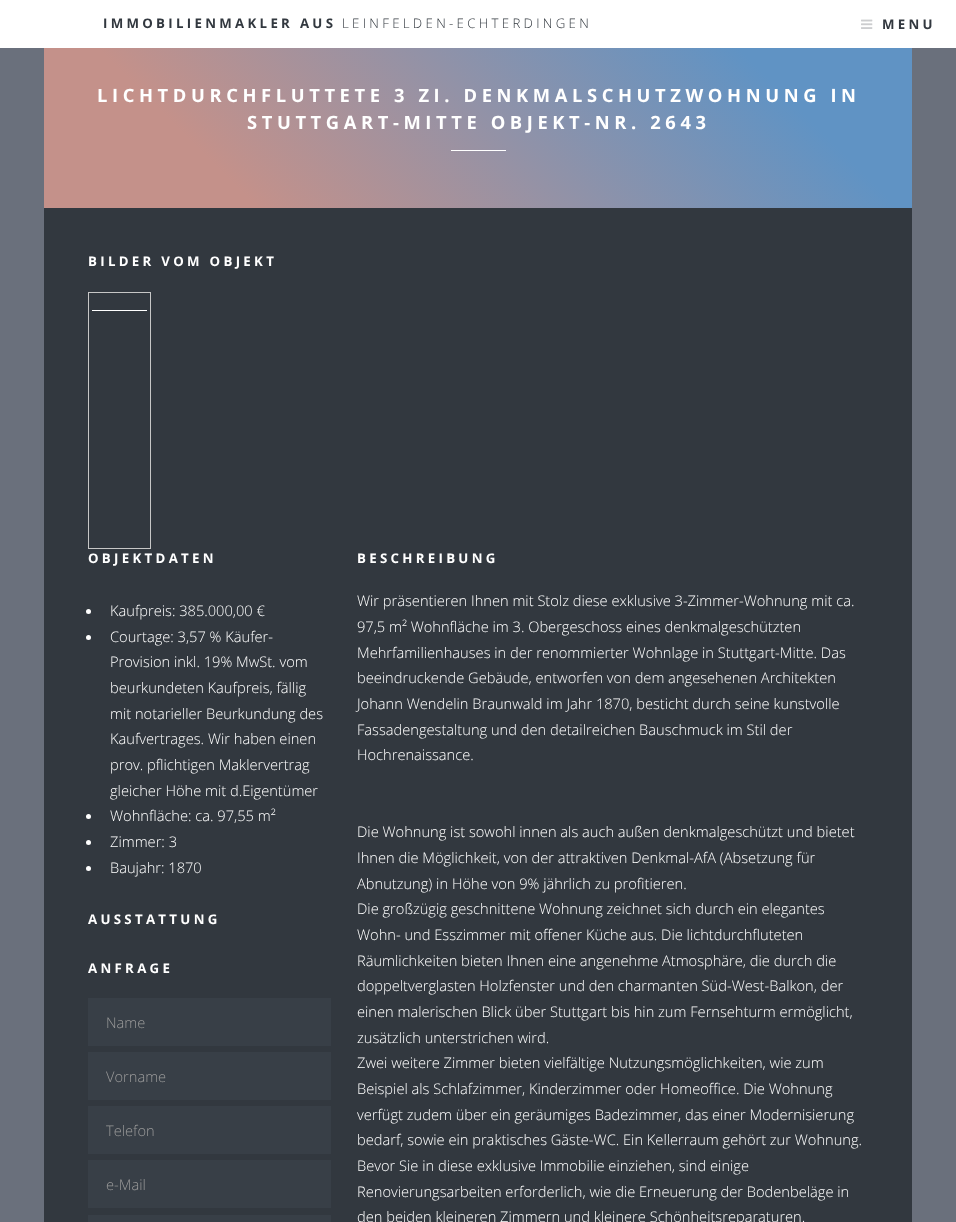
<svg xmlns="http://www.w3.org/2000/svg" width="956" height="1222">
	<defs>
		<linearGradient id="g1" gradientUnits="userSpaceOnUse" x1="211" y1="375" x2="745" y2="-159"><stop offset="0.2" stop-color="#C4918A" /><stop offset="0.8" stop-color="#6093C4" /></linearGradient>
	</defs>
	<rect width="100%" height="100%" fill="#6A707C" />
	<rect x="0" y="0" width="956" height="48" fill="#FFFFFF" />
	<text x="103" y="28" font-family="Open Sans" font-size="13.25" font-weight="700" letter-spacing="3.3" fill="#32383F">IMMOBILIENMAKLER AUS</text>
	<text x="342" y="28" font-family="Open Sans" font-size="13.25" font-weight="300" letter-spacing="3.3" fill="#32383F">LEINFELDEN-ECHTERDINGEN</text>
	<image x="861" y="19" width="12" height="10" href="assets/img1.png" />
	<text x="882" y="29" font-family="Open Sans" font-size="13.25" font-weight="700" letter-spacing="3.3" fill="#32383F">MENU</text>
	<rect x="44" y="208" width="868" height="1014" fill="#32383F" />
	<rect x="44" y="48" width="868" height="160" fill="url(#g1)" />
	<g font-family="Open Sans" font-size="18.35" font-weight="700" letter-spacing="4.6" fill="#FFFFFF">
		<text x="97" y="102">LICHTDURCHFLUTTETE 3 ZI. DENKMALSCHUTZWOHNUNG IN</text>
		<text x="247" y="129">STUTTGART-MITTE OBJEKT-NR. 2643</text>
	</g>
	<rect x="451" y="150" width="55" height="1" fill="#FFFFFF" />
	<text x="88" y="266" font-family="Open Sans" font-size="13.25" font-weight="700" letter-spacing="3.3" fill="#FFFFFF">BILDER VOM OBJEKT</text>
	<rect x="88.5" y="292.5" width="62" height="256" fill="none" stroke="#C7C7C7" />
	<rect x="92" y="310" width="55" height="1" fill="#FFFFFF" />
	<text x="88" y="563" font-family="Open Sans" font-size="13.25" font-weight="700" letter-spacing="3.3" fill="#FFFFFF">OBJEKTDATEN</text>
	<circle cx="88.5" cy="611.5" r="2.5" fill="#FFFFFF" />
	<text x="110" y="616" font-family="Open Sans" font-size="14.65" font-weight="300" fill="#FFFFFF">Kaufpreis: 385.000,00 €</text>
	<circle cx="88.5" cy="637.5" r="2.5" fill="#FFFFFF" />
	<g font-family="Open Sans" font-size="14.65" font-weight="300" fill="#FFFFFF">
		<text x="110" y="642">Courtage: 3,57 % Käufer-</text>
		<text x="110" y="667">Provision inkl. 19% MwSt. vom</text>
		<text x="110" y="693">beurkundeten Kaufpreis, fällig</text>
		<text x="110" y="719">mit notarieller Beurkundung des</text>
		<text x="110" y="744">Kaufvertrages. Wir haben einen</text>
		<text x="110" y="770">prov. pflichtigen Maklervertrag</text>
		<text x="110" y="796">gleicher Höhe mit d.Eigentümer</text>
	</g>
	<circle cx="88.5" cy="816.5" r="2.5" fill="#FFFFFF" />
	<text x="110" y="821" font-family="Open Sans" font-size="14.65" font-weight="300" fill="#FFFFFF">Wohnfläche: ca. 97,55 m²</text>
	<circle cx="88.5" cy="842.5" r="2.5" fill="#FFFFFF" />
	<text x="110" y="847" font-family="Open Sans" font-size="14.65" font-weight="300" fill="#FFFFFF">Zimmer: 3</text>
	<circle cx="88.5" cy="868.5" r="2.5" fill="#FFFFFF" />
	<text x="110" y="873" font-family="Open Sans" font-size="14.65" font-weight="300" fill="#FFFFFF">Baujahr: 1870</text>
	<g font-family="Open Sans" font-size="13.25" font-weight="700" letter-spacing="3.3" fill="#FFFFFF">
		<text x="88" y="924">AUSSTATTUNG</text>
		<text x="88" y="973">ANFRAGE</text>
	</g>
	<rect x="88" y="998" width="243" height="48" fill="#383F47" />
	<text x="106" y="1028" font-family="Open Sans" font-size="14.65" font-weight="300" fill="#999999">Name</text>
	<rect x="88" y="1052" width="243" height="48" fill="#383F47" />
	<text x="106" y="1082" font-family="Open Sans" font-size="14.65" font-weight="300" fill="#999999">Vorname</text>
	<rect x="88" y="1106" width="243" height="48" fill="#383F47" />
	<text x="106" y="1136" font-family="Open Sans" font-size="14.65" font-weight="300" fill="#999999">Telefon</text>
	<rect x="88" y="1160" width="243" height="48" fill="#383F47" />
	<text x="106" y="1190" font-family="Open Sans" font-size="14.65" font-weight="300" fill="#999999">e-Mail</text>
	<rect x="88" y="1215" width="243" height="7" fill="#383F47" />
	<text x="357" y="563" font-family="Open Sans" font-size="13.25" font-weight="700" letter-spacing="3.3" fill="#FFFFFF">BESCHREIBUNG</text>
	<g font-family="Open Sans" font-size="14.65" font-weight="300" fill="#FFFFFF">
		<text x="357" y="606">Wir präsentieren Ihnen mit Stolz diese exklusive 3-Zimmer-Wohnung mit ca.</text>
		<text x="357" y="632">97,5 m² Wohnfläche im 3. Obergeschoss eines denkmalgeschützten</text>
		<text x="357" y="658">Mehrfamilienhauses in der renommierter Wohnlage in Stuttgart-Mitte. Das</text>
		<text x="357" y="683">beeindruckende Gebäude, entworfen von dem angesehenen Architekten</text>
		<text x="357" y="709">Johann Wendelin Braunwald im Jahr 1870, besticht durch seine kunstvolle</text>
		<text x="357" y="735">Fassadengestaltung und den detailreichen Bauschmuck im Stil der</text>
		<text x="357" y="760">Hochrenaissance.</text>
		<text x="357" y="837">Die Wohnung ist sowohl innen als auch außen denkmalgeschützt und bietet</text>
		<text x="357" y="863">Ihnen die Möglichkeit, von der attraktiven Denkmal-AfA (Absetzung für</text>
		<text x="357" y="889">Abnutzung) in Höhe von 9% jährlich zu profitieren.</text>
		<text x="357" y="914">Die großzügig geschnittene Wohnung zeichnet sich durch ein elegantes</text>
		<text x="357" y="940">Wohn- und Esszimmer mit offener Küche aus. Die lichtdurchfluteten</text>
		<text x="357" y="966">Räumlichkeiten bieten Ihnen eine angenehme Atmosphäre, die durch die</text>
		<text x="357" y="991">doppeltverglasten Holzfenster und den charmanten Süd-West-Balkon, der</text>
		<text x="357" y="1017">einen malerischen Blick über Stuttgart bis hin zum Fernsehturm ermöglicht,</text>
		<text x="357" y="1043">zusätzlich unterstrichen wird.</text>
		<text x="357" y="1068">Zwei weitere Zimmer bieten vielfältige Nutzungsmöglichkeiten, wie zum</text>
		<text x="357" y="1094">Beispiel als Schlafzimmer, Kinderzimmer oder Homeoffice. Die Wohnung</text>
		<text x="357" y="1120">verfügt zudem über ein geräumiges Badezimmer, das einer Modernisierung</text>
		<text x="357" y="1145">bedarf, sowie ein praktisches Gäste-WC. Ein Kellerraum gehört zur Wohnung.</text>
		<text x="357" y="1171">Bevor Sie in diese exklusive Immobilie einziehen, sind einige</text>
		<text x="357" y="1197">Renovierungsarbeiten erforderlich, wie die Erneuerung der Bodenbeläge in</text>
		<text x="357" y="1222">den beiden kleineren Zimmern und kleinere Schönheitsreparaturen.</text>
	</g>
</svg>
